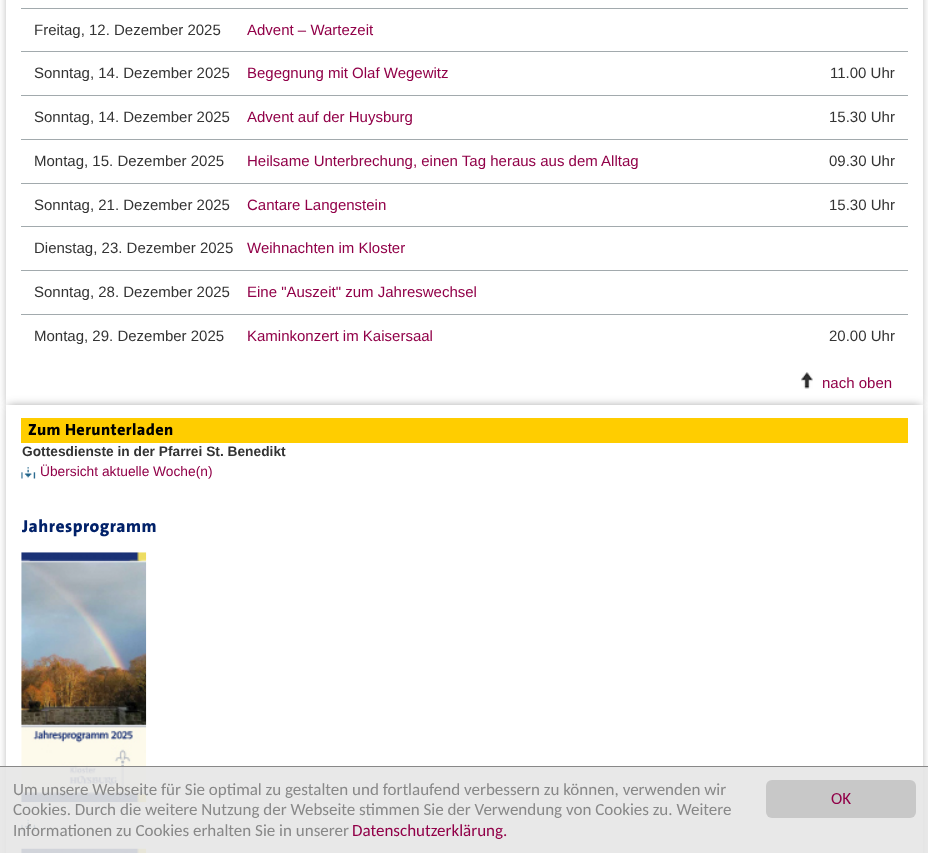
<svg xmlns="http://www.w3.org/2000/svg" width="928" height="853">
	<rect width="100%" height="100%" fill="#FFFFFF" />
	<rect x="8" y="-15" width="913" height="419" fill="#333333" fill-opacity="0.5" filter="blur(5px)" />
	<rect x="6" y="0" width="917" height="405" fill="#FFFFFF" />
	<rect x="21" y="8" width="887" height="1" fill="#A2AAAD" />
	<text x="34" y="35" font-family="Liberation Sans" font-size="15" fill="#333333">Freitag, 12. Dezember 2025</text>
	<text x="247" y="35" font-family="Liberation Sans" font-size="15" fill="#910048">Advent – Wartezeit</text>
	<rect x="21" y="51" width="887" height="1" fill="#A2AAAD" />
	<text x="34" y="78" font-family="Liberation Sans" font-size="15" fill="#333333">Sonntag, 14. Dezember 2025</text>
	<text x="247" y="78" font-family="Liberation Sans" font-size="15" fill="#910048">Begegnung mit Olaf Wegewitz</text>
	<text x="830" y="78" font-family="Liberation Sans" font-size="15" fill="#333333">11.00 Uhr</text>
	<rect x="21" y="95" width="887" height="1" fill="#A2AAAD" />
	<text x="34" y="122" font-family="Liberation Sans" font-size="15" fill="#333333">Sonntag, 14. Dezember 2025</text>
	<text x="247" y="122" font-family="Liberation Sans" font-size="15" fill="#910048">Advent auf der Huysburg</text>
	<text x="829" y="122" font-family="Liberation Sans" font-size="15" fill="#333333">15.30 Uhr</text>
	<rect x="21" y="139" width="887" height="1" fill="#A2AAAD" />
	<text x="34" y="166" font-family="Liberation Sans" font-size="15" fill="#333333">Montag, 15. Dezember 2025</text>
	<text x="247" y="166" font-family="Liberation Sans" font-size="15" fill="#910048">Heilsame Unterbrechung, einen Tag heraus aus dem Alltag</text>
	<text x="829" y="166" font-family="Liberation Sans" font-size="15" fill="#333333">09.30 Uhr</text>
	<rect x="21" y="183" width="887" height="1" fill="#A2AAAD" />
	<text x="34" y="210" font-family="Liberation Sans" font-size="15" fill="#333333">Sonntag, 21. Dezember 2025</text>
	<text x="247" y="210" font-family="Liberation Sans" font-size="15" fill="#910048">Cantare Langenstein</text>
	<text x="829" y="210" font-family="Liberation Sans" font-size="15" fill="#333333">15.30 Uhr</text>
	<rect x="21" y="226" width="887" height="1" fill="#A2AAAD" />
	<text x="34" y="253" font-family="Liberation Sans" font-size="15" fill="#333333">Dienstag, 23. Dezember 2025</text>
	<text x="247" y="253" font-family="Liberation Sans" font-size="15" fill="#910048">Weihnachten im Kloster</text>
	<rect x="21" y="270" width="887" height="1" fill="#A2AAAD" />
	<text x="34" y="297" font-family="Liberation Sans" font-size="15" fill="#333333">Sonntag, 28. Dezember 2025</text>
	<text x="247" y="297" font-family="Liberation Sans" font-size="15" fill="#910048">Eine "Auszeit" zum Jahreswechsel</text>
	<rect x="21" y="314" width="887" height="1" fill="#A2AAAD" />
	<text x="34" y="341" font-family="Liberation Sans" font-size="15" fill="#333333">Montag, 29. Dezember 2025</text>
	<text x="247" y="341" font-family="Liberation Sans" font-size="15" fill="#910048">Kaminkonzert im Kaisersaal</text>
	<text x="829" y="341" font-family="Liberation Sans" font-size="15" fill="#333333">20.00 Uhr</text>
	<image x="801" y="372" width="12" height="17" href="assets/img1.png" />
	<text x="822" y="388" font-family="Liberation Sans" font-size="15" fill="#910048">nach oben</text>
	<rect x="8" y="406" width="913" height="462" fill="#333333" fill-opacity="0.5" filter="blur(5px)" />
	<rect x="6" y="405" width="917" height="448" fill="#FFFFFF" />
	<rect x="21" y="418" width="887" height="25" fill="#FFCD00" />
	<text x="28" y="435" font-family="'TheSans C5'" font-size="16.25" font-weight="800" letter-spacing="0.4" fill="#000000">Zum Herunterladen</text>
	<text x="22" y="456" font-family="Liberation Sans" font-size="13.75" font-weight="700" fill="#333333">Gottesdienste in der Pfarrei St. Benedikt</text>
	<image x="21" y="467" width="15" height="12" href="assets/img2.png" />
	<text x="40" y="476" font-family="Liberation Sans" font-size="13.75" fill="#910048">Übersicht aktuelle Woche(n)</text>
	<text x="22" y="532" font-family="'TheSans C5'" font-size="17.5" font-weight="800" letter-spacing="0.5" fill="#012169">Jahresprogramm</text>
	<image x="21" y="552" width="126" height="251" href="assets/img3.png" />
	<image x="21" y="819" width="15" height="12" href="assets/img4.png" />
	<image x="21" y="848" width="126" height="5" href="assets/img5.png" />
	<rect x="0" y="767" width="928" height="86" fill="#E5E5E5" fill-opacity="0.9" />
	<rect x="0" y="766" width="928" height="1" fill="#888888" />
	<g font-family="Carlito" font-size="17" fill="#888888">
		<text x="13" y="795">Um unsere Webseite für Sie optimal zu gestalten und fortlaufend verbessern zu können, verwenden wir</text>
		<text x="13" y="815">Cookies. Durch die weitere Nutzung der Webseite stimmen Sie der Verwendung von Cookies zu. Weitere</text>
		<text x="13" y="836">Informationen zu Cookies erhalten Sie in unserer</text>
	</g>
	<text x="352" y="836" font-family="Carlito" font-size="17" fill="#910048">Datenschutzerklärung.</text>
	<rect x="766" y="780" width="150" height="38" rx="6" fill="#C8C8C8" />
	<text x="831" y="804" font-family="Carlito" font-size="17" fill="#910048">OK</text>
</svg>
